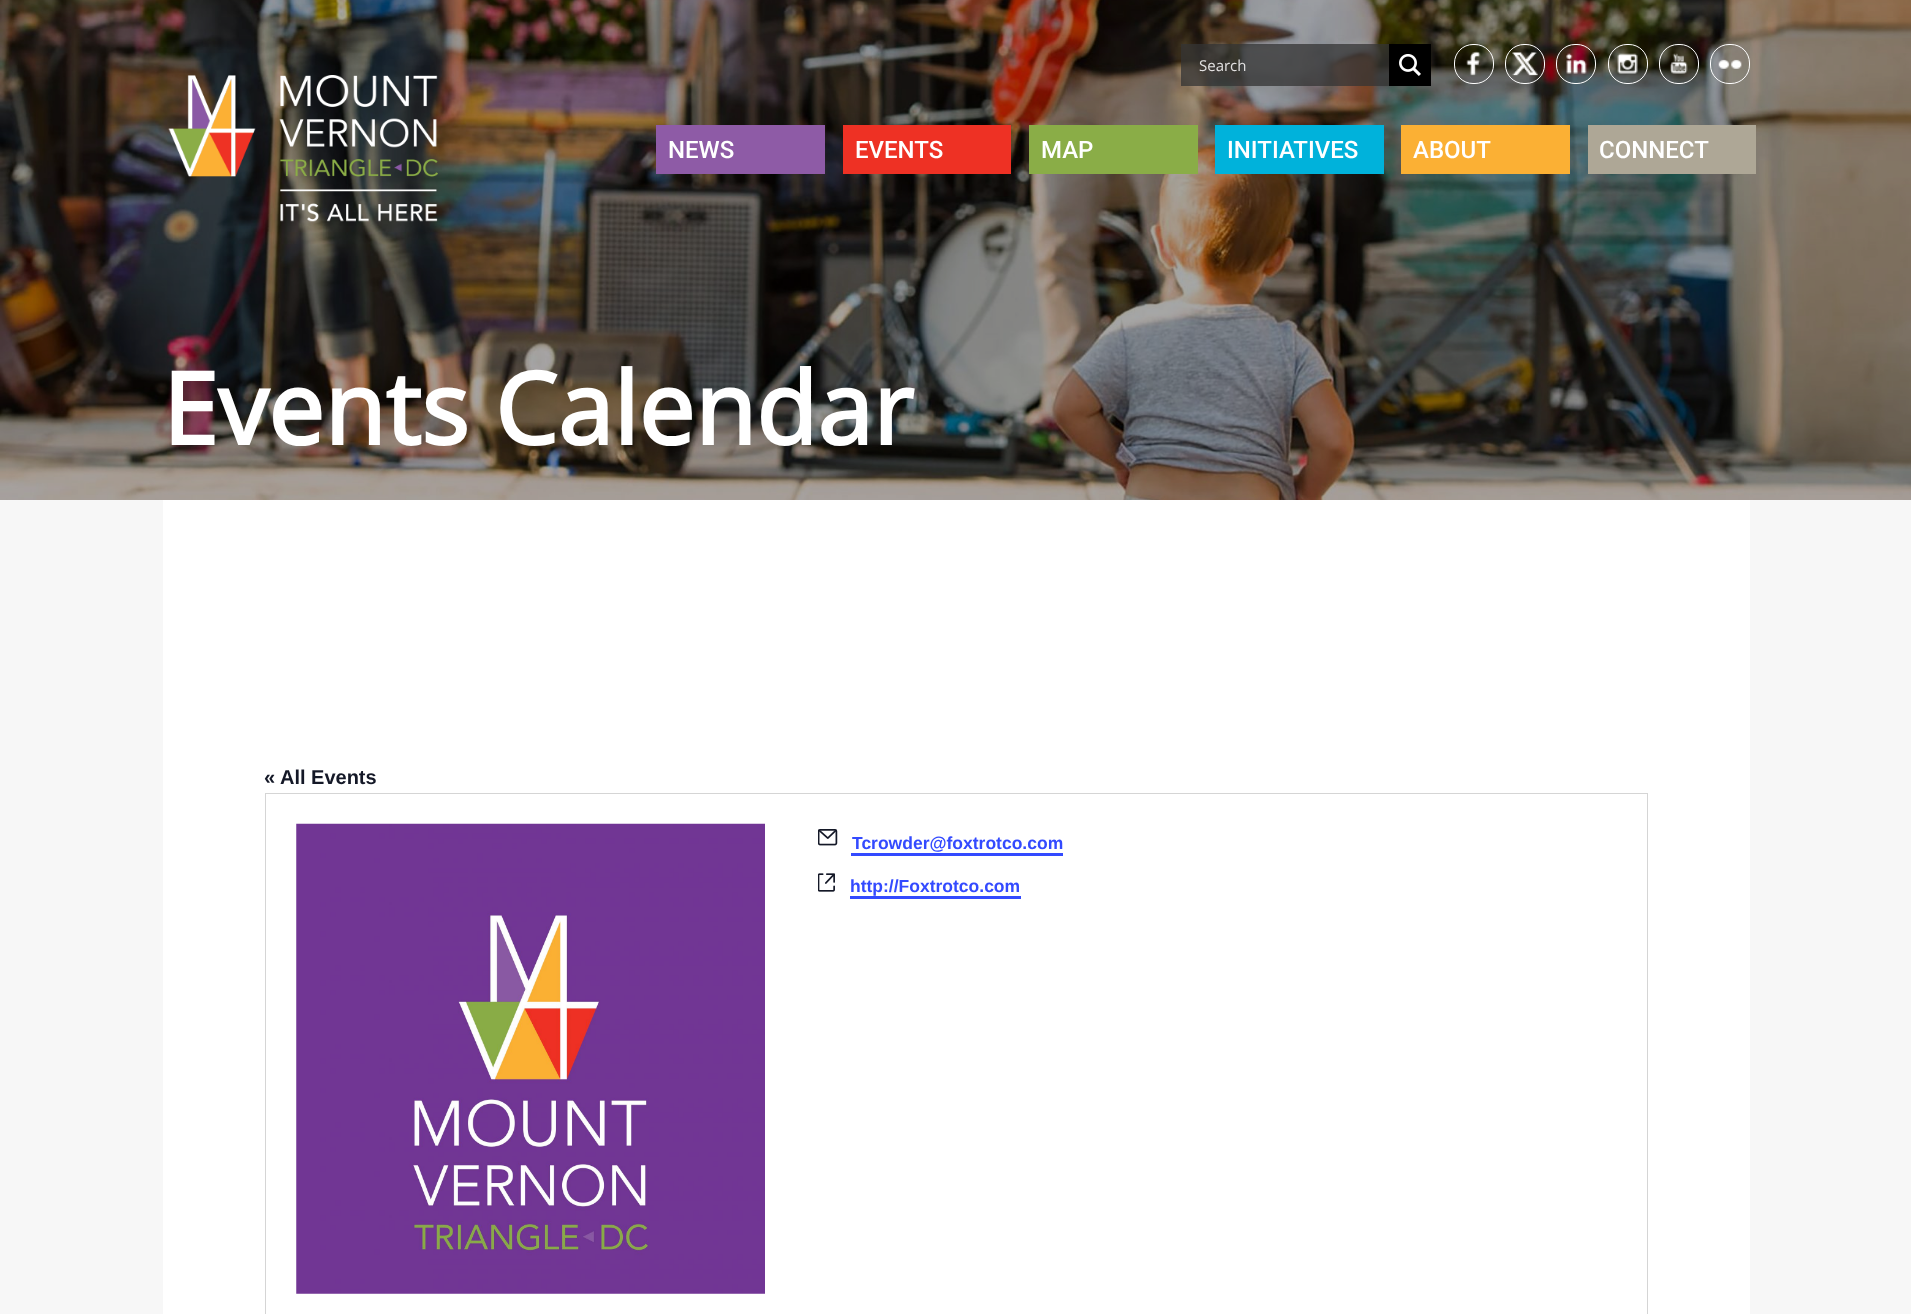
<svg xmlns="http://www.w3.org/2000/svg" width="1911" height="1314">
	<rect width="100%" height="100%" fill="#F7F7F7" />
	<image x="0" y="0" width="1911" height="500" href="assets/img9.png" />
	<rect x="1181" y="44" width="208" height="42" fill="#343434" fill-opacity="0.5" />
	<rect x="1181" y="44" width="208" height="42" fill="#343434" fill-opacity="0.5" />
	<text x="1199" y="71" font-family="Open Sans" font-size="15" fill="#E2E1E1">Search</text>
	<rect x="1389" y="44" width="42" height="42" fill="#000000" />
	<image x="1399" y="54" width="22" height="22" href="assets/img1.png" />
	<image x="1466" y="51" width="15" height="25" href="assets/img2.png" />
	<rect x="1454.5" y="44.5" width="39" height="39" rx="18.5" fill="none" stroke="#FFFFFF" />
	<image x="1512" y="52" width="26" height="24" href="assets/img3.png" />
	<rect x="1505.5" y="44.5" width="39" height="39" rx="18.5" fill="none" stroke="#FFFFFF" />
	<image x="1566" y="53" width="21" height="21" href="assets/img4.png" />
	<rect x="1556.5" y="44.5" width="39" height="39" rx="18.5" fill="none" stroke="#FFFFFF" />
	<image x="1617" y="53" width="21" height="21" href="assets/img5.png" />
	<rect x="1608.5" y="44.5" width="39" height="39" rx="18.5" fill="none" stroke="#FFFFFF" />
	<image x="1670" y="53" width="18" height="21" href="assets/img6.png" />
	<rect x="1659.5" y="44.5" width="39" height="39" rx="18.5" fill="none" stroke="#FFFFFF" />
	<image x="1718" y="59" width="24" height="10" href="assets/img7.png" />
	<rect x="1710.5" y="44.5" width="39" height="39" rx="18.5" fill="none" stroke="#FFFFFF" />
	<image x="168" y="75" width="270" height="147" href="assets/img8.png" />
	<rect x="656" y="125" width="169" height="49" fill="#8E5BA6" />
	<text x="668" y="158" font-family="Roboto" font-size="24" font-weight="500" fill="#FFFFFF">NEWS</text>
	<rect x="843" y="125" width="168" height="49" fill="#EE3124" />
	<text x="855" y="158" font-family="Roboto" font-size="24" font-weight="500" fill="#FFFFFF">EVENTS</text>
	<rect x="1029" y="125" width="169" height="49" fill="#8AAD47" />
	<text x="1041" y="158" font-family="Roboto" font-size="24" font-weight="500" fill="#FFFFFF">MAP</text>
	<rect x="1215" y="125" width="169" height="49" fill="#00B2DB" />
	<text x="1227" y="158" font-family="Roboto" font-size="24" font-weight="500" fill="#FFFFFF">INITIATIVES</text>
	<rect x="1401" y="125" width="169" height="49" fill="#FBB034" />
	<text x="1413" y="158" font-family="Roboto" font-size="24" font-weight="500" fill="#FFFFFF">ABOUT</text>
	<rect x="1588" y="125" width="168" height="49" fill="#AEA796" />
	<text x="1599" y="158" font-family="Roboto" font-size="24" font-weight="500" fill="#FFFFFF">CONNECT</text>
	<text x="162" y="445" font-family="Open Sans" font-size="100" font-weight="700" fill="#FFFFFF">Events Calendar</text>
	<rect x="163" y="500" width="1587" height="814" fill="#FFFFFF" />
	<text x="264" y="784" font-family="Liberation Sans" font-size="20" font-weight="700" fill="#141827">« All Events</text>
	<rect x="265.5" y="793.5" width="1382" height="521" fill="none" stroke="#D5D5D5" />
	<image x="296" y="823" width="469" height="471" href="assets/img10.png" />
	<image x="818" y="829" width="20" height="17" href="assets/img11.png" />
	<text x="852" y="849" font-family="Liberation Sans" font-size="17.5" font-weight="700" fill="#334AFF">Tcrowder@foxtrotco.com</text>
	<rect x="851" y="853" width="212" height="3" fill="#334AFF" />
	<image x="818" y="873" width="17" height="19" href="assets/img12.png" />
	<text x="850" y="892" font-family="Liberation Sans" font-size="17.5" font-weight="700" fill="#334AFF">http://Foxtrotco.com</text>
	<rect x="850" y="896" width="171" height="3" fill="#334AFF" />
</svg>
